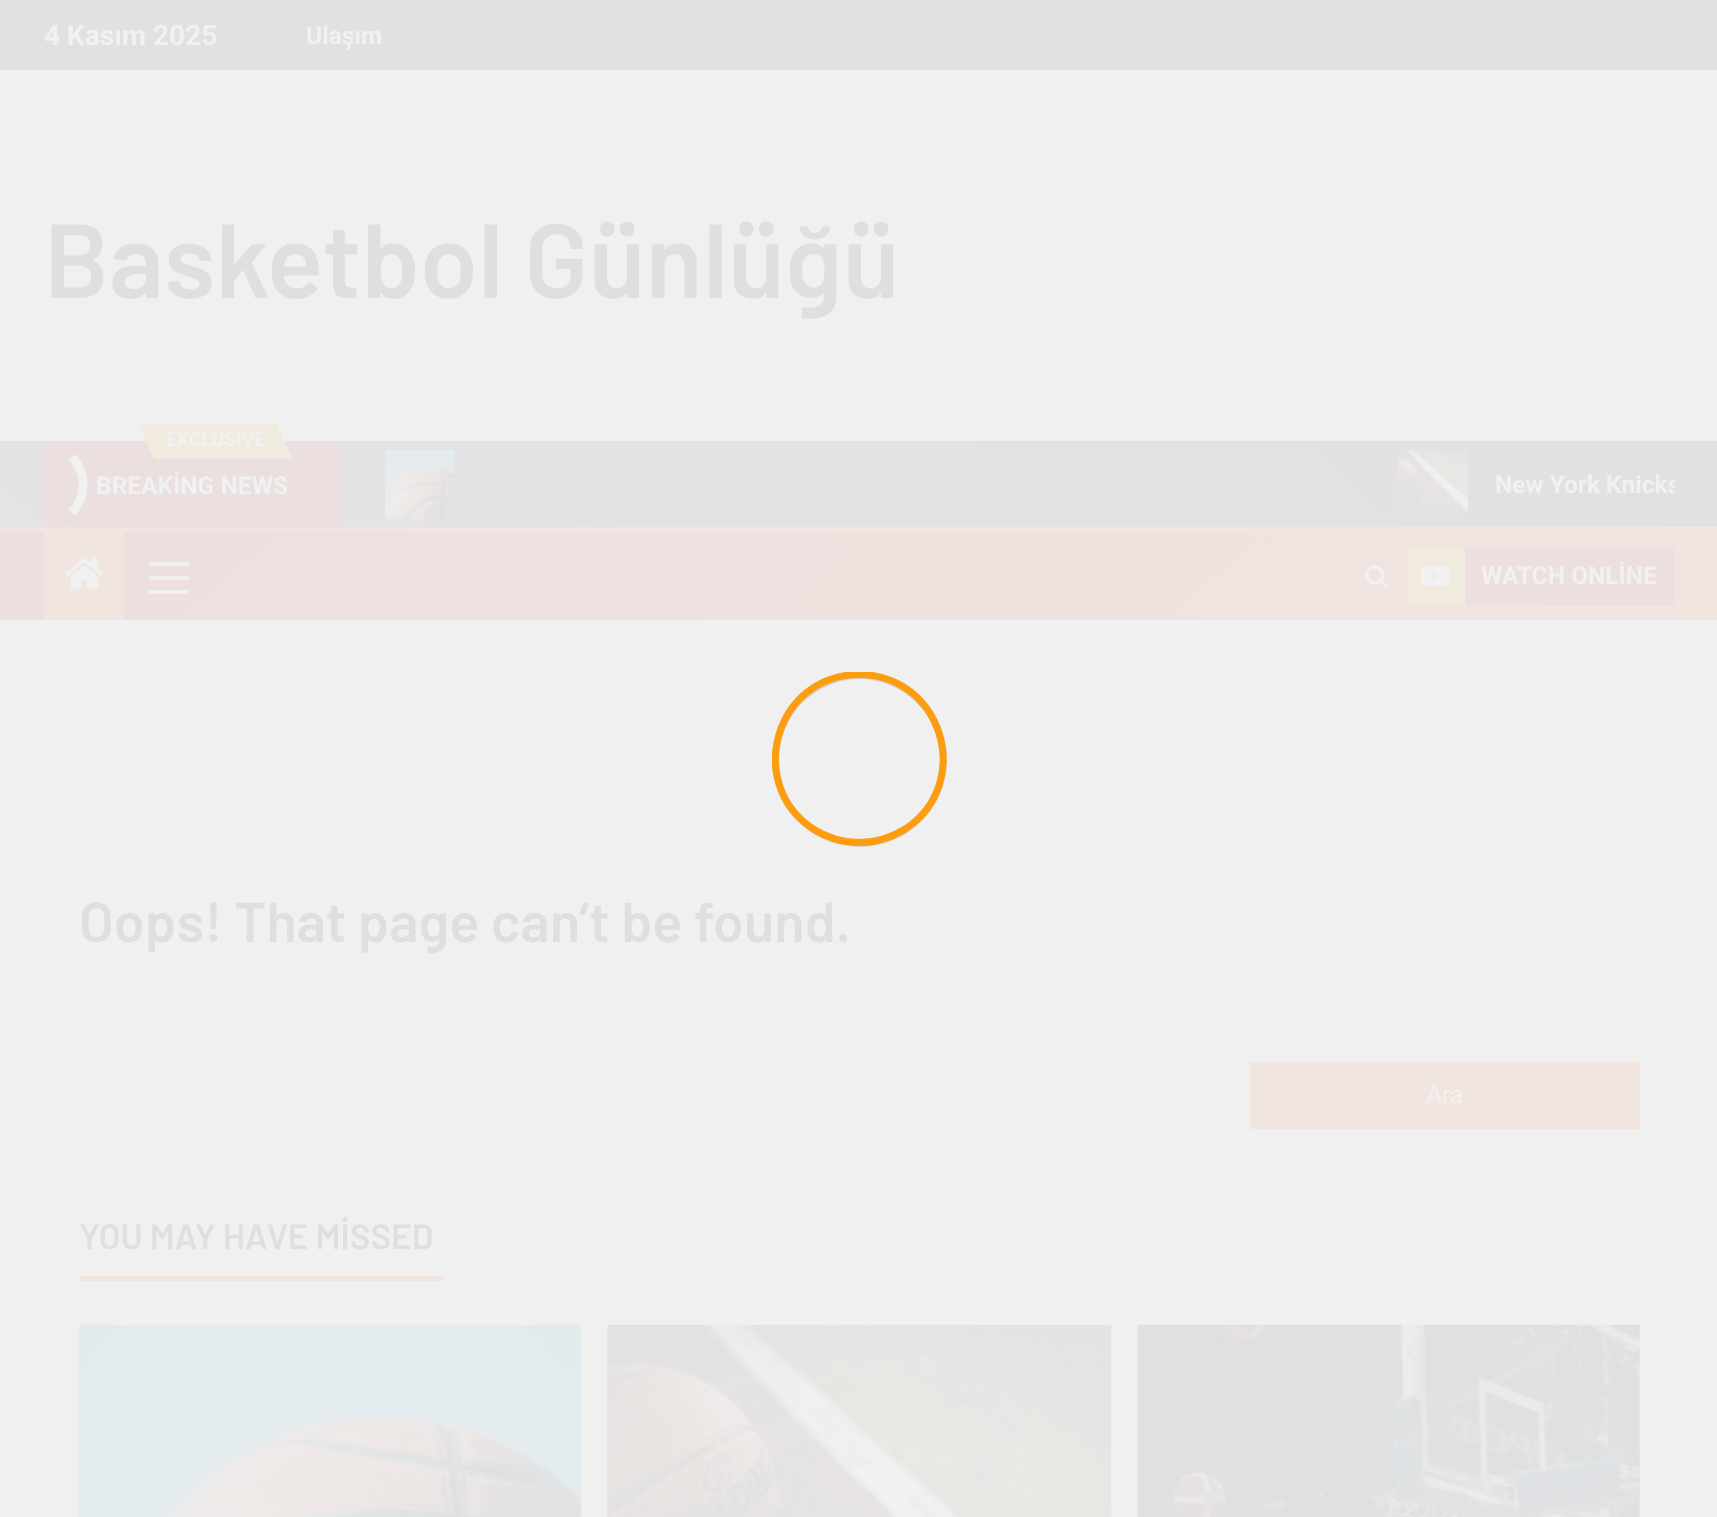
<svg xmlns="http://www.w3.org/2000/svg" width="1717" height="1517">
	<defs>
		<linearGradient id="g1" gradientUnits="userSpaceOnUse" x1="408" y1="935" x2="1310" y2="33"><stop offset="0" stop-color="#E4E4E4" /><stop offset="1" stop-color="#E1E1E1" /></linearGradient>
		<clipPath id="clip1"><rect x="44" y="441" width="297" height="86" /></clipPath>
		<clipPath id="clip2"><rect x="350" y="450" width="1325" height="70" /></clipPath>
		<linearGradient id="g2" gradientUnits="userSpaceOnUse" x1="483" y1="127" x2="1236" y2="1025"><stop offset="0" stop-color="#EDDFDF" /><stop offset="1" stop-color="#F0E5DF" /></linearGradient>
		<clipPath id="clip3"><rect x="772" y="672" width="87" height="175" /></clipPath>
		<clipPath id="clip4"><rect x="859" y="672" width="88" height="175" /></clipPath>
	</defs>
	<rect width="100%" height="100%" fill="#F0F0F0" />
	<rect x="0" y="0" width="1717" height="70" fill="#E1E1E1" />
	<text x="44" y="45" font-family="Roboto" font-size="28" font-weight="700" fill="#F1F1F1">4 Kasım 2025</text>
	<text x="306" y="44" font-family="Roboto" font-size="24.5" font-weight="700" fill="#F1F1F1">Ulaşım</text>
	<text x="44" y="298" font-family="Barlow" font-size="105" font-weight="600" fill="#DFDFDF">Basketbol Günlüğü</text>
	<rect x="0" y="441" width="1717" height="86" fill="url(#g1)" />
	<rect x="44" y="441" width="297" height="86" fill="#EBDFDF" />
	<rect x="154" y="424" width="123" height="35" fill="#F1EADF" />
	<path d="M138 423.5H154V458.5Z" fill="#F1EADF" />
	<text x="166" y="446" font-family="Roboto" font-size="19.25" font-weight="700" fill="#F1F1F1">EXCLUSİVE</text>
	<path d="M292 458.5H276.5V423.5Z" fill="#F1EADF" />
	<path d="M71.5 457C87 472 87 497.5 71.5 512.5" fill="none" stroke="#F1F1F1" stroke-width="8.8" />
	<g clip-path="url(#clip1)">
		<path d="M16 457C31 441.5 56.5 441.5 71.5 457" fill="none" stroke="#EBDFE0" stroke-width="8.8" />
		<path d="M71.5 512.5C56.5 528 31 528 16 512.5" fill="none" stroke="#EBDFE0" stroke-width="8.8" />
	</g>
	<text x="96" y="494" font-family="Roboto" font-size="24.5" font-weight="700" fill="#F1F1F1">BREAKİNG NEWS</text>
	<image x="385" y="449" width="70" height="71" href="assets/img1.png" />
	<image x="1398" y="449" width="71" height="71" href="assets/img2.png" />
	<g clip-path="url(#clip2)">
		<text x="1495" y="493" font-family="Roboto" font-size="24.5" font-weight="700" fill="#F1F1F1">New York Knicks</text>
	</g>
	<rect x="0" y="532" width="1717" height="88" fill="url(#g2)" />
	<rect x="0" y="527" width="1717" height="5" fill="#F0E5DF" />
	<rect x="44" y="532" width="80" height="88" fill="#F0E5DF" />
	<image x="65" y="558" width="39" height="31" href="assets/img3.png" />
	<rect x="149" y="576" width="40" height="4" fill="#F1F1F1" />
	<rect x="149" y="562" width="40" height="4" fill="#F1F1F1" />
	<rect x="149" y="590" width="40" height="4" fill="#F1F1F1" />
	<image x="1365" y="565" width="23" height="23" href="assets/img4.png" />
	<rect x="1407" y="548" width="58" height="58" fill="#F1EADF" />
	<image x="1421" y="566" width="28" height="20" href="assets/img5.png" />
	<rect x="1465" y="548" width="210" height="58" fill="#EDDFE0" />
	<text x="1481" y="584" font-family="Roboto" font-size="24.5" font-weight="700" fill="#F1F1F1">WATCH ONLİNE</text>
	<text x="79" y="942" font-family="Barlow" font-size="56" font-weight="600" fill="#DFDFDF">Oops! That page can’t be found.</text>
	<rect x="1250" y="1062" width="390" height="67" fill="#F0E5DF" />
	<text x="1426" y="1103" font-family="Roboto" font-size="24.5" fill="#F1F1F1">Ara</text>
	<text x="79" y="1249" font-family="Barlow" font-size="35" font-weight="600" fill="#DFDFDF">YOU MAY HAVE MİSSED</text>
	<rect x="79" y="1276" width="364" height="5" fill="#F0E5DF" />
	<image x="78" y="1324" width="503" height="193" href="assets/img6.png" />
	<image x="607" y="1324" width="505" height="193" href="assets/img7.png" />
	<image x="1137" y="1324" width="503" height="193" href="assets/img8.png" />
	<circle cx="859.5" cy="759.5" r="84" fill="none" stroke="#D0D0D0" stroke-width="7" />
	<g clip-path="url(#clip3)">
		<path d="M859.5 842.5C842.5 842.5 826.5 837.5 812.5 828.5C744 782.5 776.5 674.5 859 674.5" fill="none" stroke="#FF9800" stroke-opacity="0.93" stroke-width="7" />
	</g>
	<g clip-path="url(#clip4)">
		<path d="M859 674.5C942 674.5 974.5 782.5 906 828.5C892 837.5 876 842.5 859 842.5" fill="none" stroke="#FF9800" stroke-opacity="0.93" stroke-width="7" />
	</g>
</svg>
